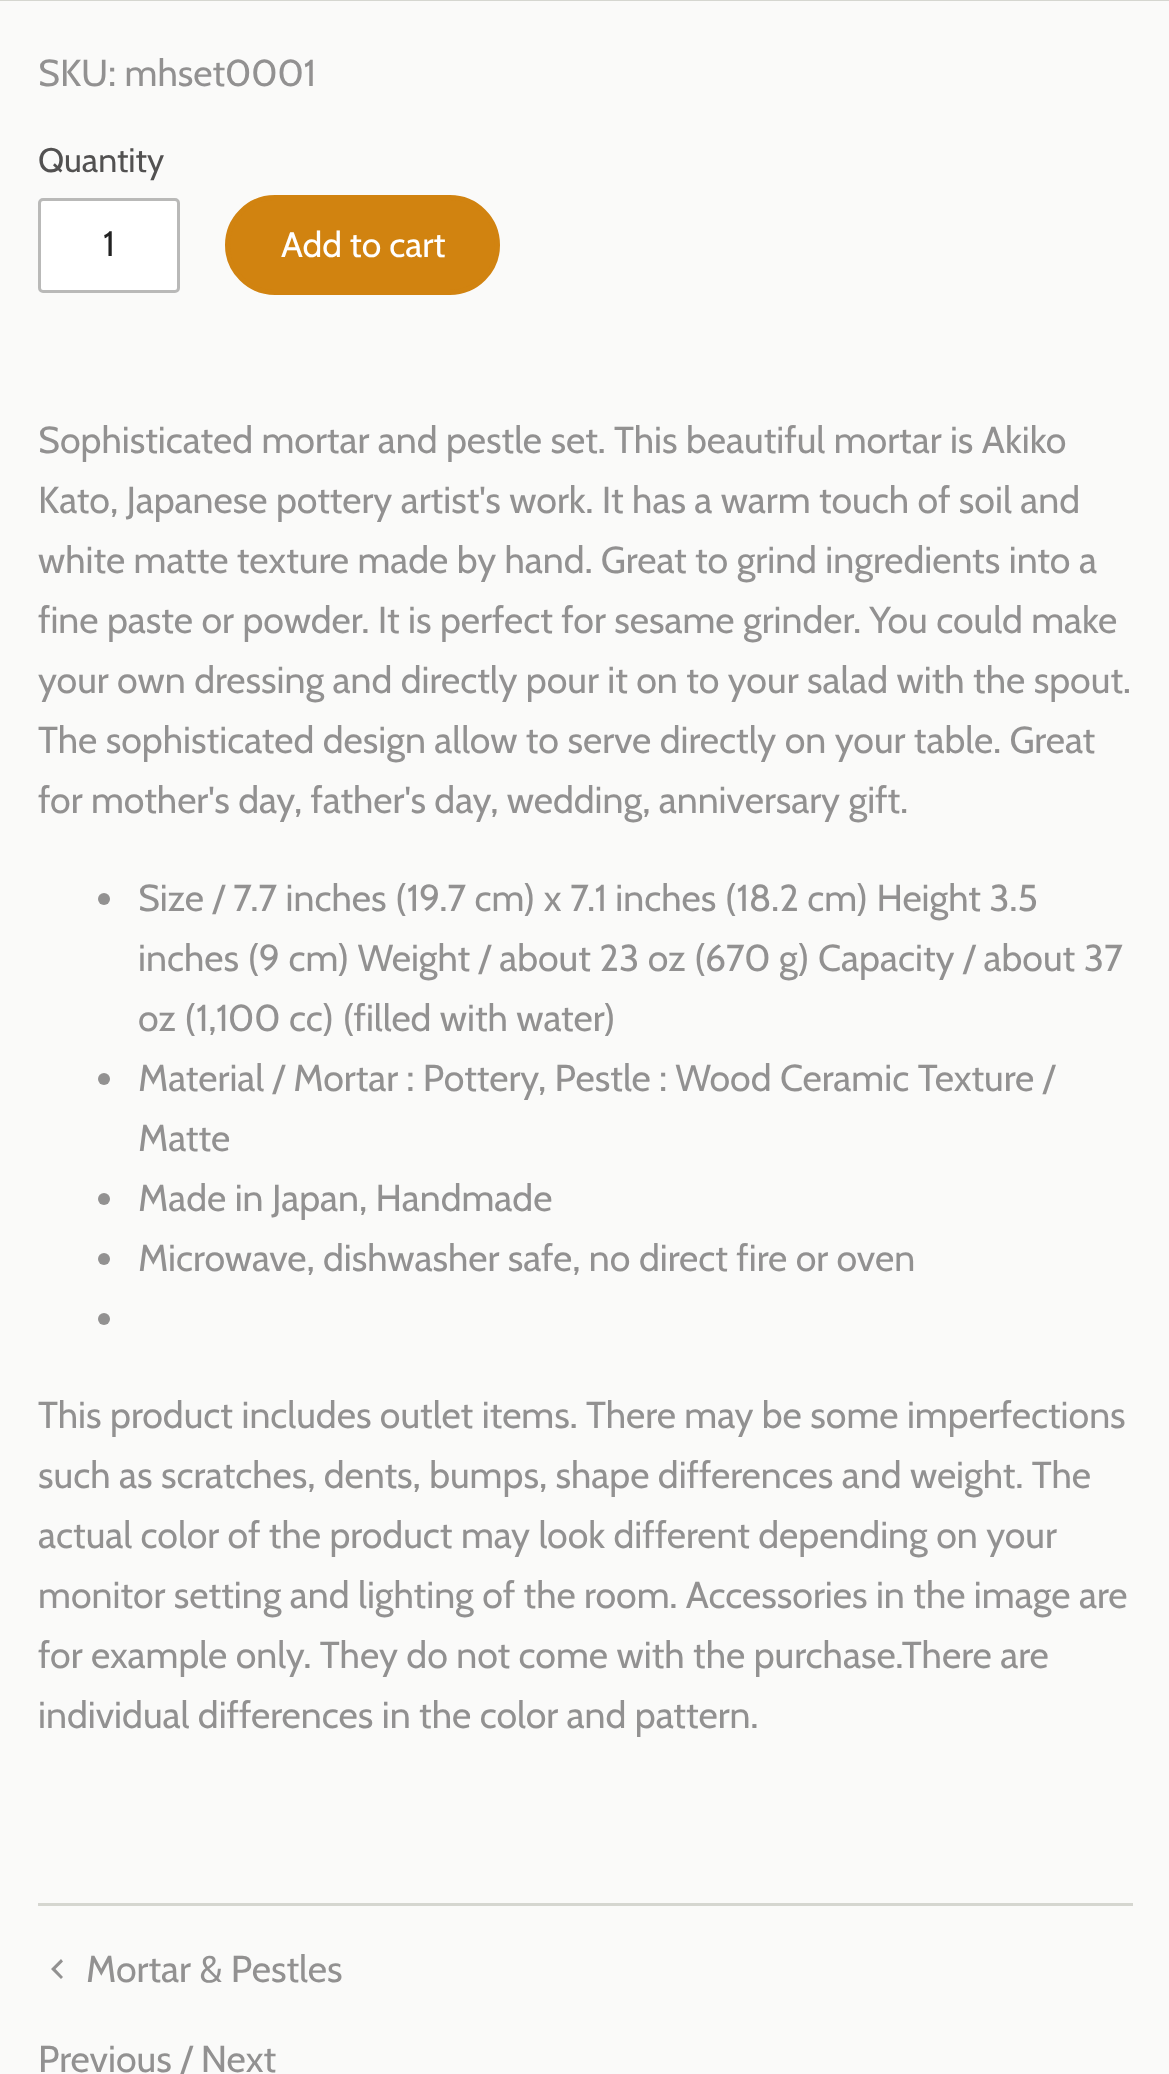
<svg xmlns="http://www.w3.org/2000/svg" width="1169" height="2074">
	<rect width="100%" height="100%" fill="#FAFAF9" />
	<rect x="0" y="0" width="1169" height="1" fill="#D5D6D0" />
	<text x="38" y="86" font-family="Cabin" font-size="37.5" fill="#929191">SKU: mhset0001</text>
	<text x="38" y="172" font-family="Cabin" font-size="34" fill="#525151">Quantity</text>
	<rect x="39.5" y="199.5" width="139" height="92" rx="3.5" fill="#FFFFFF" stroke="#B9B9B8" stroke-width="3" />
	<text x="103" y="256" font-family="Cabin" font-size="35.5" fill="#222222">1</text>
	<rect x="227.5" y="197.5" width="270" height="95" rx="47.5" fill="#D18310" stroke="#D18310" stroke-width="5" />
	<text x="281" y="257" font-family="Cabin" font-size="35.5" fill="#FFFFFF">Add to cart</text>
	<g font-family="Cabin" font-size="37.5" fill="#929191">
		<text x="38" y="453">Sophisticated mortar and pestle set. This beautiful mortar is Akiko</text>
		<text x="38" y="513">Kato, Japanese pottery artist's work. It has a warm touch of soil and</text>
		<text x="38" y="573">white matte texture made by hand. Great to grind ingredients into a</text>
		<text x="38" y="633">fine paste or powder. It is perfect for sesame grinder. You could make</text>
		<text x="38" y="693">your own dressing and directly pour it on to your salad with the spout.</text>
		<text x="38" y="753">The sophisticated design allow to serve directly on your table. Great</text>
		<text x="38" y="813">for mother's day, father's day, wedding, anniversary gift.</text>
	</g>
	<circle cx="104" cy="899" r="6" fill="#929191" />
	<g font-family="Cabin" font-size="37.5" fill="#929191">
		<text x="138" y="911">Size / 7.7 inches (19.7 cm) x 7.1 inches (18.2 cm) Height 3.5</text>
		<text x="138" y="971">inches (9 cm) Weight / about 23 oz (670 g) Capacity / about 37</text>
		<text x="138" y="1031">oz (1,100 cc) (filled with water)</text>
	</g>
	<circle cx="104" cy="1079" r="6" fill="#929191" />
	<g font-family="Cabin" font-size="37.5" fill="#929191">
		<text x="138" y="1091">Material / Mortar : Pottery, Pestle : Wood Ceramic Texture /</text>
		<text x="138" y="1151">Matte</text>
	</g>
	<circle cx="104" cy="1199" r="6" fill="#929191" />
	<text x="138" y="1211" font-family="Cabin" font-size="37.5" fill="#929191">Made in Japan, Handmade</text>
	<circle cx="104" cy="1259" r="6" fill="#929191" />
	<text x="138" y="1271" font-family="Cabin" font-size="37.5" fill="#929191">Microwave, dishwasher safe, no direct fire or oven</text>
	<circle cx="104" cy="1319" r="6" fill="#929191" />
	<g font-family="Cabin" font-size="37.5" fill="#929191">
		<text x="38" y="1428">This product includes outlet items. There may be some imperfections</text>
		<text x="38" y="1488">such as scratches, dents, bumps, shape differences and weight. The</text>
		<text x="38" y="1548">actual color of the product may look different depending on your</text>
		<text x="38" y="1608">monitor setting and lighting of the room. Accessories in the image are</text>
		<text x="38" y="1668">for example only. They do not come with the purchase.There are</text>
		<text x="38" y="1728">individual differences in the color and pattern.</text>
	</g>
	<rect x="38" y="1903" width="1095" height="3" fill="#D5D6D0" />
	<path d="M63 1977L55.5 1969L63 1961.5L61 1959L51 1969L61 1979Z" fill="#929191" />
	<g font-family="Cabin" font-size="37.5" fill="#929191">
		<text x="86" y="1982">Mortar &amp; Pestles</text>
		<text x="38" y="2072">Previous / Next</text>
	</g>
</svg>
